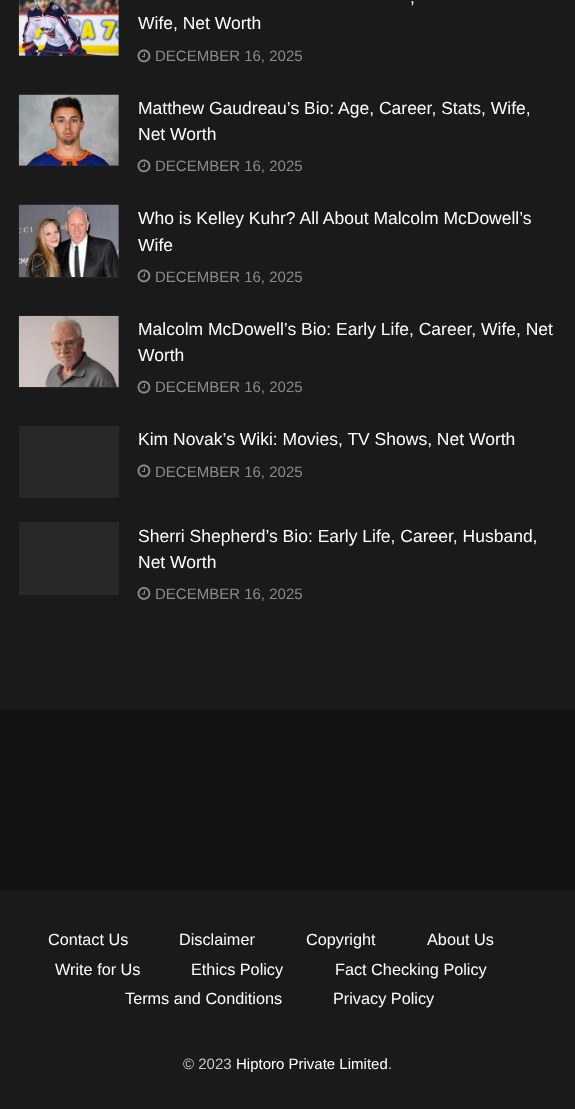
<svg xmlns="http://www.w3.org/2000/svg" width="575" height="1109">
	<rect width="100%" height="100%" fill="#1A1A1A" />
	<rect x="19" y="0" width="100" height="56" fill="#282828" />
	<image x="18" y="0" width="101" height="56" href="assets/img1.png" />
	<g font-family="Liberation Sans" font-size="17.5" fill="#FFFFFF">
		<text x="410" y="3">,</text>
		<text x="138" y="29">Wife, Net Worth</text>
	</g>
	<image x="137" y="49" width="14" height="14" href="assets/img2.png" />
	<text x="155" y="61" font-family="Liberation Sans" font-size="15" fill="#8B8B8B">DECEMBER 16, 2025</text>
	<rect x="19" y="95" width="100" height="71" fill="#282828" />
	<image x="18" y="94" width="101" height="72" href="assets/img3.png" />
	<g font-family="Liberation Sans" font-size="17.5" fill="#FFFFFF">
		<text x="138" y="114">Matthew Gaudreau’s Bio: Age, Career, Stats, Wife,</text>
		<text x="138" y="140">Net Worth</text>
	</g>
	<image x="137" y="159" width="14" height="14" href="assets/img2.png" />
	<text x="155" y="171" font-family="Liberation Sans" font-size="15" fill="#8B8B8B">DECEMBER 16, 2025</text>
	<rect x="19" y="205" width="100" height="73" fill="#282828" />
	<image x="18" y="204" width="101" height="73" href="assets/img4.png" />
	<g font-family="Liberation Sans" font-size="17.5" fill="#FFFFFF">
		<text x="138" y="224">Who is Kelley Kuhr? All About Malcolm McDowell’s</text>
		<text x="138" y="251">Wife</text>
	</g>
	<image x="137" y="269" width="14" height="14" href="assets/img2.png" />
	<text x="155" y="282" font-family="Liberation Sans" font-size="15" fill="#8B8B8B">DECEMBER 16, 2025</text>
	<rect x="19" y="316" width="100" height="72" fill="#282828" />
	<image x="18" y="315" width="101" height="72" href="assets/img5.png" />
	<g font-family="Liberation Sans" font-size="17.5" fill="#FFFFFF">
		<text x="138" y="335">Malcolm McDowell’s Bio: Early Life, Career, Wife, Net</text>
		<text x="138" y="361">Worth</text>
	</g>
	<image x="137" y="380" width="14" height="14" href="assets/img6.png" />
	<text x="155" y="392" font-family="Liberation Sans" font-size="15" fill="#8B8B8B">DECEMBER 16, 2025</text>
	<rect x="19" y="426" width="100" height="72" fill="#282828" />
	<text x="138" y="445" font-family="Liberation Sans" font-size="17.5" fill="#FFFFFF">Kim Novak’s Wiki: Movies, TV Shows, Net Worth</text>
	<image x="137" y="464" width="14" height="14" href="assets/img2.png" />
	<text x="155" y="477" font-family="Liberation Sans" font-size="15" fill="#8B8B8B">DECEMBER 16, 2025</text>
	<rect x="19" y="523" width="100" height="72" fill="#282828" />
	<image x="19" y="522" width="100" height="1" href="assets/img7.png" />
	<g font-family="Liberation Sans" font-size="17.5" fill="#FFFFFF">
		<text x="138" y="542">Sherri Shepherd’s Bio: Early Life, Career, Husband,</text>
		<text x="138" y="568">Net Worth</text>
	</g>
	<image x="137" y="587" width="14" height="13" href="assets/img8.png" />
	<text x="155" y="599" font-family="Liberation Sans" font-size="15" fill="#8B8B8B">DECEMBER 16, 2025</text>
	<rect x="0" y="709" width="575" height="182" fill="#131313" />
	<g font-family="Liberation Sans" font-size="16.25" fill="#FFFFFF">
		<text x="48" y="945">Contact Us</text>
		<text x="179" y="945">Disclaimer</text>
		<text x="306" y="945">Copyright</text>
		<text x="427" y="945">About Us</text>
		<text x="55" y="975">Write for Us</text>
		<text x="191" y="975">Ethics Policy</text>
		<text x="335" y="975">Fact Checking Policy</text>
		<text x="125" y="1004">Terms and Conditions</text>
		<text x="333" y="1004">Privacy Policy</text>
	</g>
	<text x="183" y="1069" font-family="Liberation Sans" font-size="15" fill="#CACACA">© 2023</text>
	<text x="236" y="1069" font-family="Liberation Sans" font-size="15" fill="#FFFFFF">Hiptoro Private Limited</text>
	<text x="388" y="1069" font-family="Liberation Sans" font-size="15" fill="#CACACA">.</text>
</svg>
